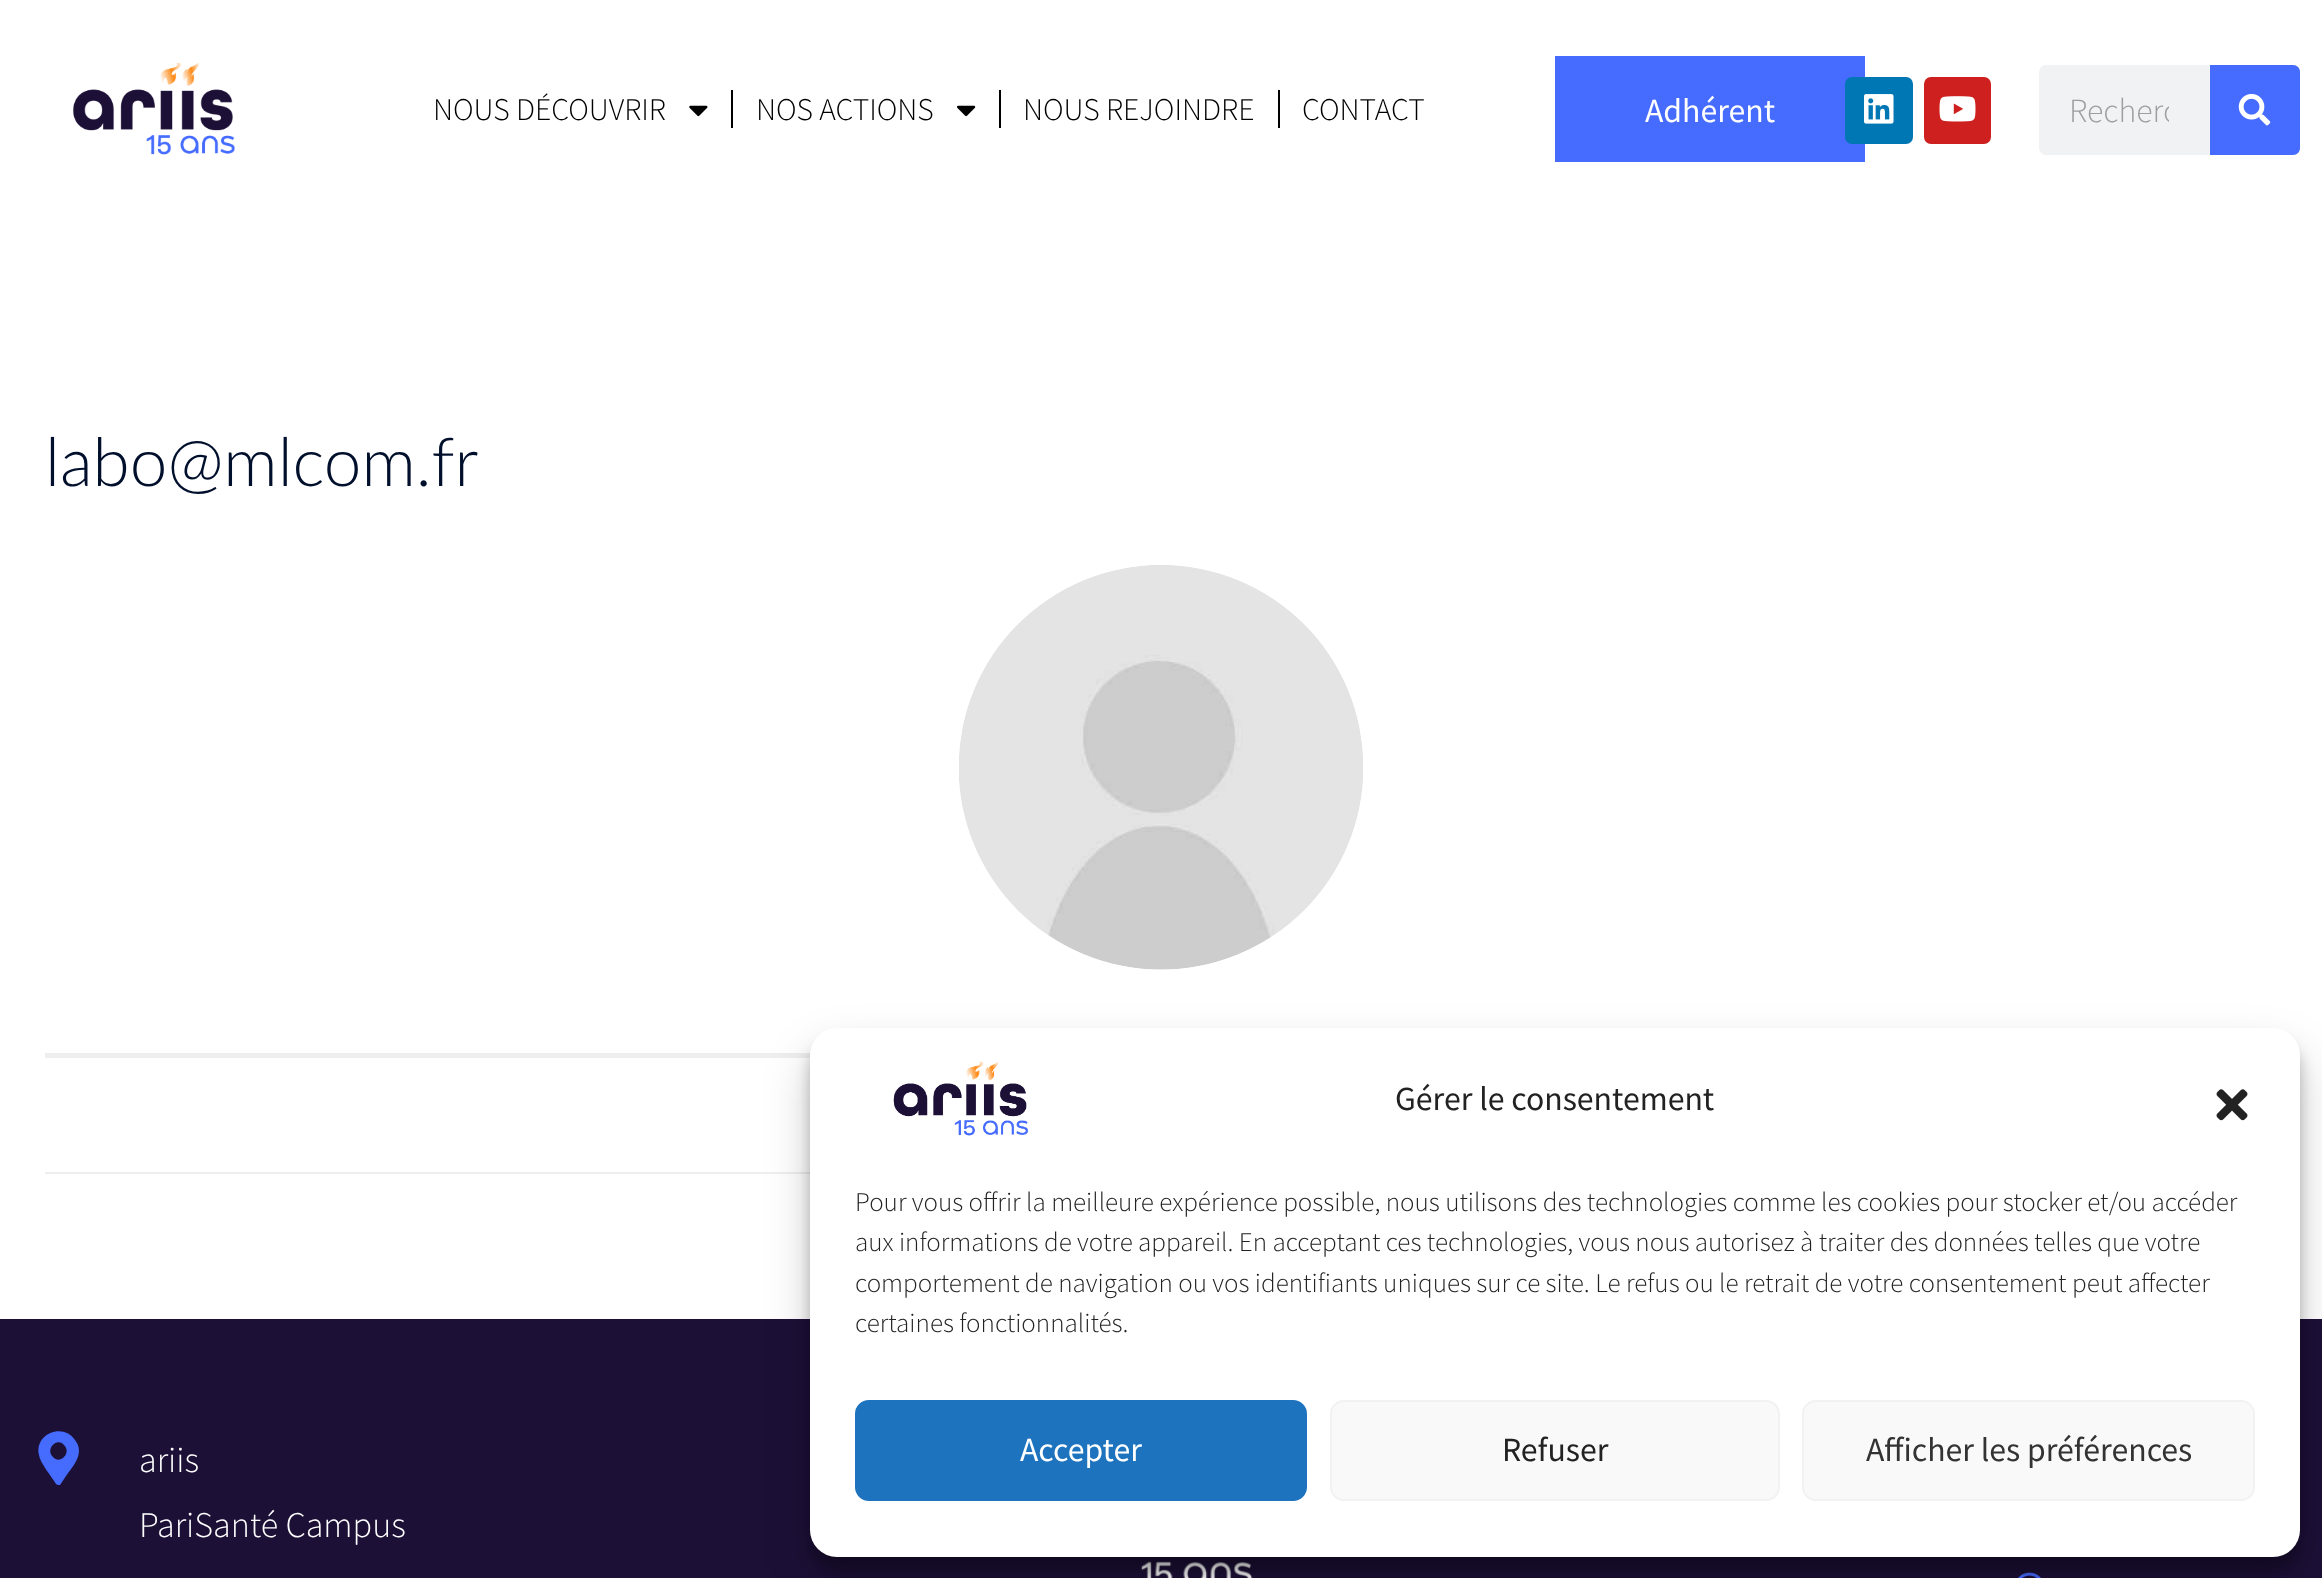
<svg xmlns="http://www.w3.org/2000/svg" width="2322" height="1578">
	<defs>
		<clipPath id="clip1"><rect x="2070" y="88" width="99" height="43" /></clipPath>
	</defs>
	<rect width="100%" height="100%" fill="#FFFFFF" />
	<image x="72" y="63" width="163" height="92" href="assets/img1.png" />
	<text x="433" y="120" font-family="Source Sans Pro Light" font-size="31.5" font-weight="300" fill="#000000">NOUS DÉCOUVRIR</text>
	<image x="689" y="105" width="19" height="12" href="assets/img2.png" />
	<rect x="731" y="90" width="2" height="38" fill="#000000" />
	<text x="756" y="120" font-family="Source Sans Pro Light" font-size="31.5" font-weight="300" fill="#000000">NOS ACTIONS</text>
	<image x="957" y="105" width="19" height="12" href="assets/img3.png" />
	<rect x="999" y="90" width="2" height="38" fill="#000000" />
	<text x="1023" y="120" font-family="Source Sans Pro Light" font-size="31.5" font-weight="300" fill="#000000">NOUS REJOINDRE</text>
	<rect x="1278" y="90" width="2" height="38" fill="#000000" />
	<text x="1302" y="120" font-family="Source Sans Pro Light" font-size="31.5" font-weight="300" fill="#000000">CONTACT</text>
	<rect x="1555" y="56" width="310" height="106" fill="#456BFF" />
	<text x="1645" y="122" font-family="Source Sans Pro" font-size="33.75" fill="#FFFFFF">Adhérent</text>
	<rect x="1845" y="77" width="68" height="67" rx="7" fill="#0077B5" />
	<image x="1864" y="94" width="30" height="30" href="assets/img4.png" />
	<rect x="1924" y="77" width="67" height="67" rx="7" fill="#CD201F" />
	<image x="1939" y="96" width="37" height="26" href="assets/img5.png" />
	<rect x="2039" y="65" width="261" height="90" rx="7" fill="#F1F2F3" />
	<g clip-path="url(#clip1)">
		<text x="2069" y="122" font-family="Source Sans Pro Light" font-size="33.75" font-weight="300" fill="#9E9E9E">Recherc</text>
	</g>
	<path d="M2210 65H2293C2297 65 2300 68 2300 72V148C2300 152 2297 155 2293 155H2210Z" fill="#456BFF" />
	<image x="2238" y="93" width="33" height="33" href="assets/img6.png" />
	<rect x="45" y="1172" width="765" height="2" fill="#EEEEEE" />
	<text x="45" y="486" font-family="Lato" font-size="67.5" font-weight="300" fill="#000F2B">labo@mlcom.fr</text>
	<rect x="45" y="1053" width="766" height="5" fill="#EEEEEE" />
	<image x="959" y="565" width="404" height="405" href="assets/img7.png" />
	<rect x="0" y="1319" width="2322" height="259" fill="#1D1037" />
	<path d="M56 1484C52 1477 40 1463 39 1455C34 1434 63 1422 75 1440C85 1453 74 1465 66 1476L60 1485C59 1485 57 1485 56 1484ZM53 1457C60 1465 72 1453 64 1445C57 1437 45 1449 53 1457Z" fill="#456BFF" />
	<g font-family="Source Sans Pro Light" font-size="36" font-weight="300" fill="#FFFFFF">
		<text x="139" y="1472">ariis</text>
		<text x="139" y="1537">PariSanté Campus</text>
	</g>
	<image x="1140" y="1561" width="113" height="17" href="assets/img8.png" />
	<image x="2018" y="1572" width="23" height="6" href="assets/img9.png" />
	<rect x="810" y="1042" width="1490" height="529" rx="27" fill="#000000" fill-opacity="0.23" filter="blur(7px)" />
	<rect x="810" y="1051" width="1490" height="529" rx="27" fill="#000000" fill-opacity="0.19" filter="blur(22.5px)" />
	<rect x="810" y="1028" width="1490" height="529" rx="27" fill="#FFFFFF" />
	<image x="893" y="1061" width="135" height="75" href="assets/img10.png" />
	<text x="1395" y="1110" font-family="Source Sans Pro" font-size="33.75" fill="#222222">Gérer le consentement</text>
	<image x="2216" y="1089" width="32" height="32" href="assets/img11.png" />
	<g font-family="Source Sans Pro Light" font-size="27" font-weight="300" fill="#222222">
		<text x="855" y="1211">Pour vous offrir la meilleure expérience possible, nous utilisons des technologies comme les cookies pour stocker et/ou accéder</text>
		<text x="855" y="1251">aux informations de votre appareil. En acceptant ces technologies, vous nous autorisez à traiter des données telles que votre</text>
		<text x="855" y="1292">comportement de navigation ou vos identifiants uniques sur ce site. Le refus ou le retrait de votre consentement peut affecter</text>
		<text x="855" y="1332">certaines fonctionnalités.</text>
	</g>
	<rect x="856" y="1401" width="450" height="99" rx="13" fill="#1E73BE" stroke="#1E73BE" stroke-width="2" />
	<text x="1020" y="1461" font-family="Source Sans Pro" font-size="33.75" fill="#FFFFFF">Accepter</text>
	<rect x="1331" y="1401" width="448" height="99" rx="13" fill="#F9F9F9" stroke="#F2F2F2" stroke-width="2" />
	<text x="1502" y="1461" font-family="Source Sans Pro" font-size="33.75" fill="#222222">Refuser</text>
	<rect x="1803" y="1401" width="451" height="99" rx="13" fill="#F9F9F9" stroke="#F2F2F2" stroke-width="2" />
	<text x="1866" y="1461" font-family="Source Sans Pro" font-size="33.75" fill="#333333">Afficher les préférences</text>
</svg>
